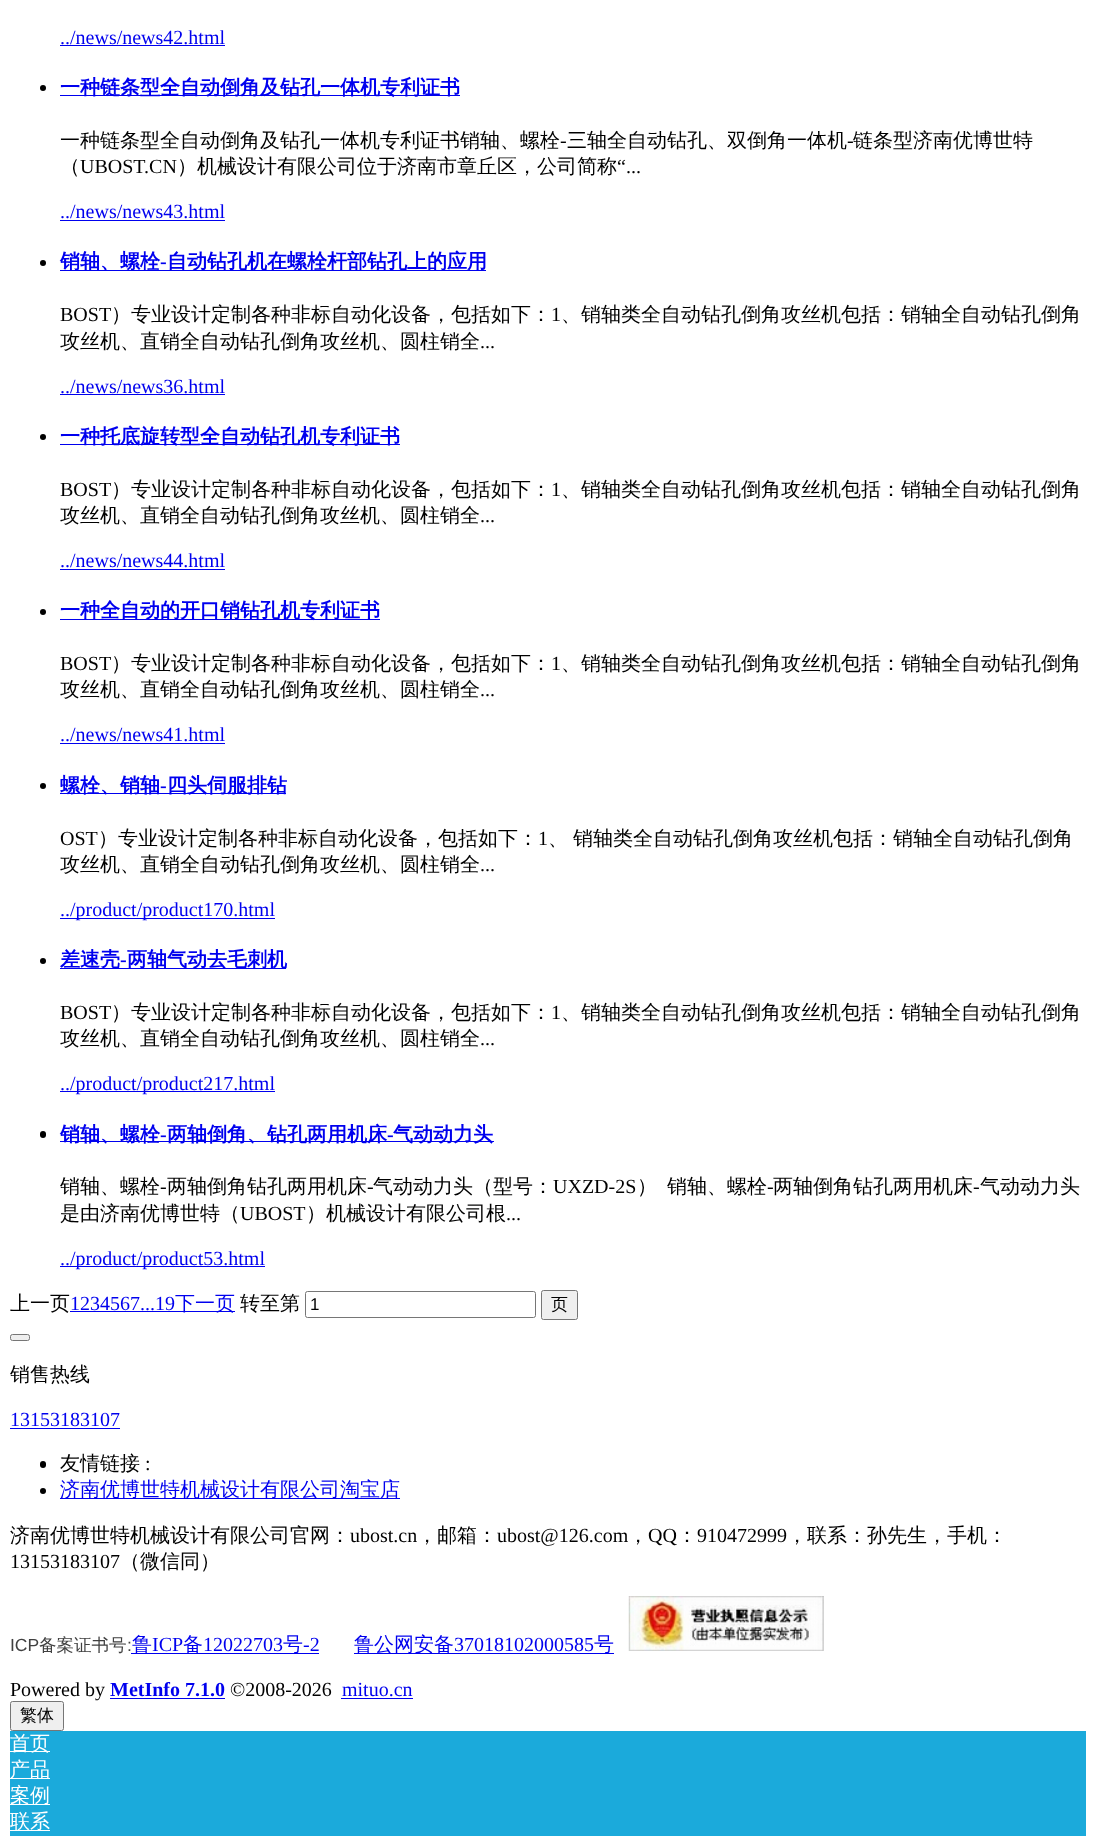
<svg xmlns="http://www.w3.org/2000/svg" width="1096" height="1846">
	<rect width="100%" height="100%" fill="#FFFFFF" />
	<text x="60" y="44" font-family="Liberation Serif" font-size="20" fill="#0000EE">../news/news42.html</text>
	<rect x="60" y="45" width="165" height="1" fill="#0000EE" />
	<circle cx="43" cy="88" r="3" fill="#000000" />
	<rect x="60" y="95" width="400" height="1" fill="#0000EE" />
	<text x="60" y="94" font-family="WenQuanYi Zen Hei" font-size="20" font-weight="700" fill="#0000EE">一种链条型全自动倒角及钻孔一体机专利证书</text>
	<text x="60" y="147" font-family="WenQuanYi Zen Hei" font-size="20" font-weight="500" fill="#000000">一种链条型全自动倒角及钻孔一体机专利证书销轴、螺栓</text>
	<text x="560" y="147" font-family="Liberation Serif" font-size="20" fill="#000000">-</text>
	<text x="567" y="147" font-family="WenQuanYi Zen Hei" font-size="20" font-weight="500" fill="#000000">三轴全自动钻孔、双倒角一体机</text>
	<text x="847" y="147" font-family="Liberation Serif" font-size="20" fill="#000000">-</text>
	<g font-family="WenQuanYi Zen Hei" font-size="20" font-weight="500" fill="#000000">
		<text x="853" y="147">链条型济南优博世特</text>
		<text x="60" y="173">（</text>
	</g>
	<text x="80" y="173" font-family="Liberation Serif" font-size="20" fill="#000000">UBOST.CN</text>
	<text x="177" y="173" font-family="WenQuanYi Zen Hei" font-size="20" font-weight="500" fill="#000000">）机械设计有限公司位于济南市章丘区，公司简称</text>
	<text x="617" y="173" font-family="Liberation Serif" font-size="20" fill="#000000">“...</text>
	<text x="60" y="218" font-family="Liberation Serif" font-size="20" fill="#0000EE">../news/news43.html</text>
	<rect x="60" y="220" width="165" height="1" fill="#0000EE" />
	<circle cx="43" cy="263" r="3" fill="#000000" />
	<rect x="60" y="270" width="426" height="1" fill="#0000EE" />
	<text x="60" y="268" font-family="WenQuanYi Zen Hei" font-size="20" font-weight="700" fill="#0000EE">销轴、螺栓</text>
	<text x="160" y="268" font-family="Liberation Serif" font-size="20" font-weight="700" fill="#0000EE">-</text>
	<text x="167" y="268" font-family="WenQuanYi Zen Hei" font-size="20" font-weight="700" fill="#0000EE">自动钻孔机在螺栓杆部钻孔上的应用</text>
	<text x="60" y="321" font-family="Liberation Serif" font-size="20" fill="#000000">BOST</text>
	<text x="111" y="321" font-family="WenQuanYi Zen Hei" font-size="20" font-weight="500" fill="#000000">）专业设计定制各种非标自动化设备，包括如下：</text>
	<text x="551" y="321" font-family="Liberation Serif" font-size="20" fill="#000000">1</text>
	<g font-family="WenQuanYi Zen Hei" font-size="20" font-weight="500" fill="#000000">
		<text x="561" y="321">、销轴类全自动钻孔倒角攻丝机包括：销轴全自动钻孔倒角</text>
		<text x="60" y="348">攻丝机、直销全自动钻孔倒角攻丝机、圆柱销全</text>
	</g>
	<text x="480" y="348" font-family="Liberation Serif" font-size="20" fill="#000000">...</text>
	<text x="60" y="393" font-family="Liberation Serif" font-size="20" fill="#0000EE">../news/news36.html</text>
	<rect x="60" y="394" width="165" height="1" fill="#0000EE" />
	<circle cx="43" cy="437" r="3" fill="#000000" />
	<rect x="60" y="444" width="340" height="1" fill="#0000EE" />
	<text x="60" y="443" font-family="WenQuanYi Zen Hei" font-size="20" font-weight="700" fill="#0000EE">一种托底旋转型全自动钻孔机专利证书</text>
	<text x="60" y="496" font-family="Liberation Serif" font-size="20" fill="#000000">BOST</text>
	<text x="111" y="496" font-family="WenQuanYi Zen Hei" font-size="20" font-weight="500" fill="#000000">）专业设计定制各种非标自动化设备，包括如下：</text>
	<text x="551" y="496" font-family="Liberation Serif" font-size="20" fill="#000000">1</text>
	<g font-family="WenQuanYi Zen Hei" font-size="20" font-weight="500" fill="#000000">
		<text x="561" y="496">、销轴类全自动钻孔倒角攻丝机包括：销轴全自动钻孔倒角</text>
		<text x="60" y="522">攻丝机、直销全自动钻孔倒角攻丝机、圆柱销全</text>
	</g>
	<text x="480" y="522" font-family="Liberation Serif" font-size="20" fill="#000000">...</text>
	<text x="60" y="567" font-family="Liberation Serif" font-size="20" fill="#0000EE">../news/news44.html</text>
	<rect x="60" y="569" width="165" height="1" fill="#0000EE" />
	<circle cx="43" cy="612" r="3" fill="#000000" />
	<rect x="60" y="619" width="320" height="1" fill="#0000EE" />
	<text x="60" y="617" font-family="WenQuanYi Zen Hei" font-size="20" font-weight="700" fill="#0000EE">一种全自动的开口销钻孔机专利证书</text>
	<text x="60" y="670" font-family="Liberation Serif" font-size="20" fill="#000000">BOST</text>
	<text x="111" y="670" font-family="WenQuanYi Zen Hei" font-size="20" font-weight="500" fill="#000000">）专业设计定制各种非标自动化设备，包括如下：</text>
	<text x="551" y="670" font-family="Liberation Serif" font-size="20" fill="#000000">1</text>
	<g font-family="WenQuanYi Zen Hei" font-size="20" font-weight="500" fill="#000000">
		<text x="561" y="670">、销轴类全自动钻孔倒角攻丝机包括：销轴全自动钻孔倒角</text>
		<text x="60" y="696">攻丝机、直销全自动钻孔倒角攻丝机、圆柱销全</text>
	</g>
	<text x="480" y="696" font-family="Liberation Serif" font-size="20" fill="#000000">...</text>
	<text x="60" y="741" font-family="Liberation Serif" font-size="20" fill="#0000EE">../news/news41.html</text>
	<rect x="60" y="743" width="165" height="1" fill="#0000EE" />
	<circle cx="43" cy="786" r="3" fill="#000000" />
	<rect x="60" y="793" width="226" height="1" fill="#0000EE" />
	<text x="60" y="792" font-family="WenQuanYi Zen Hei" font-size="20" font-weight="700" fill="#0000EE">螺栓、销轴</text>
	<text x="160" y="792" font-family="Liberation Serif" font-size="20" font-weight="700" fill="#0000EE">-</text>
	<text x="167" y="792" font-family="WenQuanYi Zen Hei" font-size="20" font-weight="700" fill="#0000EE">四头伺服排钻</text>
	<text x="60" y="845" font-family="Liberation Serif" font-size="20" fill="#000000">OST</text>
	<text x="98" y="845" font-family="WenQuanYi Zen Hei" font-size="20" font-weight="500" fill="#000000">）专业设计定制各种非标自动化设备，包括如下：</text>
	<text x="538" y="845" font-family="Liberation Serif" font-size="20" fill="#000000">1</text>
	<g font-family="WenQuanYi Zen Hei" font-size="20" font-weight="500" fill="#000000">
		<text x="573" y="845">销轴类全自动钻孔倒角攻丝机包括：销轴全自动钻孔倒角</text>
		<text x="548" y="845">、</text>
		<text x="60" y="871">攻丝机、直销全自动钻孔倒角攻丝机、圆柱销全</text>
	</g>
	<text x="480" y="871" font-family="Liberation Serif" font-size="20" fill="#000000">...</text>
	<rect x="60" y="918" width="215" height="1" fill="#0000EE" />
	<text x="60" y="916" font-family="Liberation Serif" font-size="20" fill="#0000EE">../product/product170.html</text>
	<circle cx="43" cy="961" r="3" fill="#000000" />
	<rect x="60" y="968" width="226" height="1" fill="#0000EE" />
	<text x="60" y="966" font-family="WenQuanYi Zen Hei" font-size="20" font-weight="700" fill="#0000EE">差速壳</text>
	<text x="120" y="966" font-family="Liberation Serif" font-size="20" font-weight="700" fill="#0000EE">-</text>
	<text x="127" y="966" font-family="WenQuanYi Zen Hei" font-size="20" font-weight="700" fill="#0000EE">两轴气动去毛刺机</text>
	<text x="60" y="1019" font-family="Liberation Serif" font-size="20" fill="#000000">BOST</text>
	<text x="111" y="1019" font-family="WenQuanYi Zen Hei" font-size="20" font-weight="500" fill="#000000">）专业设计定制各种非标自动化设备，包括如下：</text>
	<text x="551" y="1019" font-family="Liberation Serif" font-size="20" fill="#000000">1</text>
	<g font-family="WenQuanYi Zen Hei" font-size="20" font-weight="500" fill="#000000">
		<text x="561" y="1019">、销轴类全自动钻孔倒角攻丝机包括：销轴全自动钻孔倒角</text>
		<text x="60" y="1045">攻丝机、直销全自动钻孔倒角攻丝机、圆柱销全</text>
	</g>
	<text x="480" y="1045" font-family="Liberation Serif" font-size="20" fill="#000000">...</text>
	<rect x="60" y="1091" width="215" height="1" fill="#0000EE" />
	<text x="60" y="1090" font-family="Liberation Serif" font-size="20" fill="#0000EE">../product/product217.html</text>
	<rect x="40" y="1131" width="6" height="7" rx="3" fill="#000000" />
	<rect x="60" y="1141" width="434" height="1" fill="#0000EE" />
	<text x="60" y="1141" font-family="WenQuanYi Zen Hei" font-size="20" font-weight="700" fill="#0000EE">销轴、螺栓</text>
	<text x="160" y="1141" font-family="Liberation Serif" font-size="20" font-weight="700" fill="#0000EE">-</text>
	<text x="167" y="1141" font-family="WenQuanYi Zen Hei" font-size="20" font-weight="700" fill="#0000EE">两轴倒角、钻孔两用机床</text>
	<text x="387" y="1141" font-family="Liberation Serif" font-size="20" font-weight="700" fill="#0000EE">-</text>
	<text x="393" y="1141" font-family="WenQuanYi Zen Hei" font-size="20" font-weight="700" fill="#0000EE">气动动力头</text>
	<text x="60" y="1193" font-family="WenQuanYi Zen Hei" font-size="20" font-weight="500" fill="#000000">销轴、螺栓</text>
	<text x="160" y="1193" font-family="Liberation Serif" font-size="20" fill="#000000">-</text>
	<text x="167" y="1193" font-family="WenQuanYi Zen Hei" font-size="20" font-weight="500" fill="#000000">两轴倒角钻孔两用机床</text>
	<text x="367" y="1193" font-family="Liberation Serif" font-size="20" fill="#000000">-</text>
	<text x="373" y="1193" font-family="WenQuanYi Zen Hei" font-size="20" font-weight="500" fill="#000000">气动动力头（型号：</text>
	<text x="553" y="1193" font-family="Liberation Serif" font-size="20" fill="#000000">UXZD-2S</text>
	<g font-family="WenQuanYi Zen Hei" font-size="20" font-weight="500" fill="#000000">
		<text x="637" y="1193">）</text>
		<text x="667" y="1193">销轴、螺栓</text>
	</g>
	<text x="767" y="1193" font-family="Liberation Serif" font-size="20" fill="#000000">-</text>
	<text x="773" y="1193" font-family="WenQuanYi Zen Hei" font-size="20" font-weight="500" fill="#000000">两轴倒角钻孔两用机床</text>
	<text x="973" y="1193" font-family="Liberation Serif" font-size="20" fill="#000000">-</text>
	<g font-family="WenQuanYi Zen Hei" font-size="20" font-weight="500" fill="#000000">
		<text x="980" y="1193">气动动力头</text>
		<text x="60" y="1220">是由济南优博世特（</text>
	</g>
	<text x="240" y="1220" font-family="Liberation Serif" font-size="20" fill="#000000">UBOST</text>
	<text x="306" y="1220" font-family="WenQuanYi Zen Hei" font-size="20" font-weight="500" fill="#000000">）机械设计有限公司根</text>
	<text x="506" y="1220" font-family="Liberation Serif" font-size="20" fill="#000000">...</text>
	<rect x="60" y="1266" width="205" height="1" fill="#0000EE" />
	<text x="60" y="1265" font-family="Liberation Serif" font-size="20" fill="#0000EE">../product/product53.html</text>
	<text x="10" y="1310" font-family="WenQuanYi Zen Hei" font-size="20" font-weight="500" fill="#000000">上一页</text>
	<text x="70" y="1310" font-family="Liberation Serif" font-size="20" fill="#0000EE">1234567...19</text>
	<rect x="70" y="1311" width="165" height="1" fill="#0000EE" />
	<text x="175" y="1310" font-family="WenQuanYi Zen Hei" font-size="20" font-weight="500" fill="#0000EE">下一页</text>
	<text x="240" y="1310" font-family="WenQuanYi Zen Hei" font-size="20" font-weight="500" fill="#000000">转至第</text>
	<rect x="305.5" y="1291.5" width="230" height="26" rx="2" fill="none" stroke="#767676" />
	<text x="310" y="1310" font-family="Liberation Sans" font-size="17" fill="#000000">1</text>
	<rect x="541.5" y="1290.5" width="36" height="29" rx="2" fill="#EFEFEF" stroke="#767676" />
	<text x="551" y="1310" font-family="WenQuanYi Zen Hei" font-size="17" font-weight="500" fill="#000000">页</text>
	<rect x="10.5" y="1334.5" width="19" height="6" rx="2" fill="#EFEFEF" stroke="#767676" />
	<text x="10" y="1381" font-family="WenQuanYi Zen Hei" font-size="20" font-weight="500" fill="#000000">销售热线</text>
	<text x="10" y="1426" font-family="Liberation Serif" font-size="20" fill="#0000EE">13153183107</text>
	<rect x="10" y="1428" width="110" height="1" fill="#0000EE" />
	<rect x="40" y="1461" width="6" height="7" rx="3" fill="#000000" />
	<text x="60" y="1470" font-family="WenQuanYi Zen Hei" font-size="20" font-weight="500" fill="#000000">友情链接</text>
	<text x="145" y="1470" font-family="Liberation Serif" font-size="20" fill="#000000">:</text>
	<circle cx="43" cy="1491" r="3" fill="#000000" />
	<rect x="60" y="1498" width="340" height="1" fill="#0000EE" />
	<text x="60" y="1496" font-family="WenQuanYi Zen Hei" font-size="20" font-weight="500" fill="#0000EE">济南优博世特机械设计有限公司淘宝店</text>
	<text x="10" y="1542" font-family="WenQuanYi Zen Hei" font-size="20" font-weight="500" fill="#000000">济南优博世特机械设计有限公司官网：</text>
	<text x="350" y="1542" font-family="Liberation Serif" font-size="20" fill="#000000">ubost.cn</text>
	<text x="417" y="1542" font-family="WenQuanYi Zen Hei" font-size="20" font-weight="500" fill="#000000">，邮箱：</text>
	<text x="497" y="1542" font-family="Liberation Serif" font-size="20" fill="#000000">ubost@126.com</text>
	<text x="628" y="1542" font-family="WenQuanYi Zen Hei" font-size="20" font-weight="500" fill="#000000">，</text>
	<text x="648" y="1542" font-family="Liberation Serif" font-size="20" fill="#000000">QQ</text>
	<text x="677" y="1542" font-family="WenQuanYi Zen Hei" font-size="20" font-weight="500" fill="#000000">：</text>
	<text x="697" y="1542" font-family="Liberation Serif" font-size="20" fill="#000000">910472999</text>
	<text x="787" y="1542" font-family="WenQuanYi Zen Hei" font-size="20" font-weight="500" fill="#000000">，联系：孙先生，手机：</text>
	<text x="10" y="1568" font-family="Liberation Serif" font-size="20" fill="#000000">13153183107</text>
	<text x="120" y="1568" font-family="WenQuanYi Zen Hei" font-size="20" font-weight="500" fill="#000000">（微信同）</text>
	<text x="10" y="1651" font-family="Liberation Sans" font-size="17.5" fill="#404040">ICP</text>
	<text x="39" y="1651" font-family="WenQuanYi Zen Hei" font-size="17.5" font-weight="500" fill="#404040">备案证书号</text>
	<text x="127" y="1651" font-family="Liberation Sans" font-size="17.5" fill="#404040">:</text>
	<rect x="131" y="1653" width="188" height="1" fill="#0000EE" />
	<text x="132" y="1651" font-family="WenQuanYi Zen Hei" font-size="20" font-weight="500" fill="#0000EE">鲁</text>
	<text x="152" y="1651" font-family="Liberation Serif" font-size="20" fill="#0000EE">ICP</text>
	<text x="183" y="1651" font-family="WenQuanYi Zen Hei" font-size="20" font-weight="500" fill="#0000EE">备</text>
	<text x="203" y="1651" font-family="Liberation Serif" font-size="20" fill="#0000EE">12022703</text>
	<text x="283" y="1651" font-family="WenQuanYi Zen Hei" font-size="20" font-weight="500" fill="#0000EE">号</text>
	<text x="303" y="1651" font-family="Liberation Serif" font-size="20" fill="#0000EE">-2</text>
	<rect x="354" y="1653" width="260" height="1" fill="#0000EE" />
	<text x="354" y="1651" font-family="WenQuanYi Zen Hei" font-size="20" font-weight="500" fill="#0000EE">鲁公网安备</text>
	<text x="454" y="1651" font-family="Liberation Serif" font-size="20" fill="#0000EE">37018102000585</text>
	<text x="594" y="1651" font-family="WenQuanYi Zen Hei" font-size="20" font-weight="500" fill="#0000EE">号</text>
	<image x="628" y="1596" width="196" height="55" href="assets/img1.png" />
	<text x="10" y="1696" font-family="Liberation Serif" font-size="20" fill="#000000">Powered by</text>
	<text x="110" y="1696" font-family="Liberation Serif" font-size="20" font-weight="700" fill="#0000EE">MetInfo 7.1.0</text>
	<rect x="110" y="1698" width="115" height="1" fill="#0000EE" />
	<text x="230" y="1696" font-family="Liberation Serif" font-size="20" fill="#000000">©2008-2026</text>
	<text x="342" y="1696" font-family="Liberation Serif" font-size="20" fill="#0000EE">mituo.cn</text>
	<rect x="341" y="1698" width="72" height="1" fill="#0000EE" />
	<rect x="10.5" y="1701.5" width="53" height="29" rx="2" fill="#EFEFEF" stroke="#767676" />
	<text x="20" y="1721" font-family="WenQuanYi Zen Hei" font-size="17" font-weight="500" fill="#000000">繁体</text>
	<rect x="10" y="1731" width="1076" height="105" fill="#1BAADB" />
	<rect x="10" y="1751" width="40" height="1" fill="#FFFFFF" />
	<text x="10" y="1750" font-family="WenQuanYi Zen Hei" font-size="20" font-weight="500" fill="#FFFFFF">首页</text>
	<rect x="10" y="1778" width="40" height="1" fill="#FFFFFF" />
	<text x="10" y="1776" font-family="WenQuanYi Zen Hei" font-size="20" font-weight="500" fill="#FFFFFF">产品</text>
	<rect x="10" y="1804" width="40" height="1" fill="#FFFFFF" />
	<text x="10" y="1802" font-family="WenQuanYi Zen Hei" font-size="20" font-weight="500" fill="#FFFFFF">案例</text>
	<rect x="10" y="1830" width="40" height="1" fill="#FFFFFF" />
	<text x="10" y="1828" font-family="WenQuanYi Zen Hei" font-size="20" font-weight="500" fill="#FFFFFF">联系</text>
</svg>
